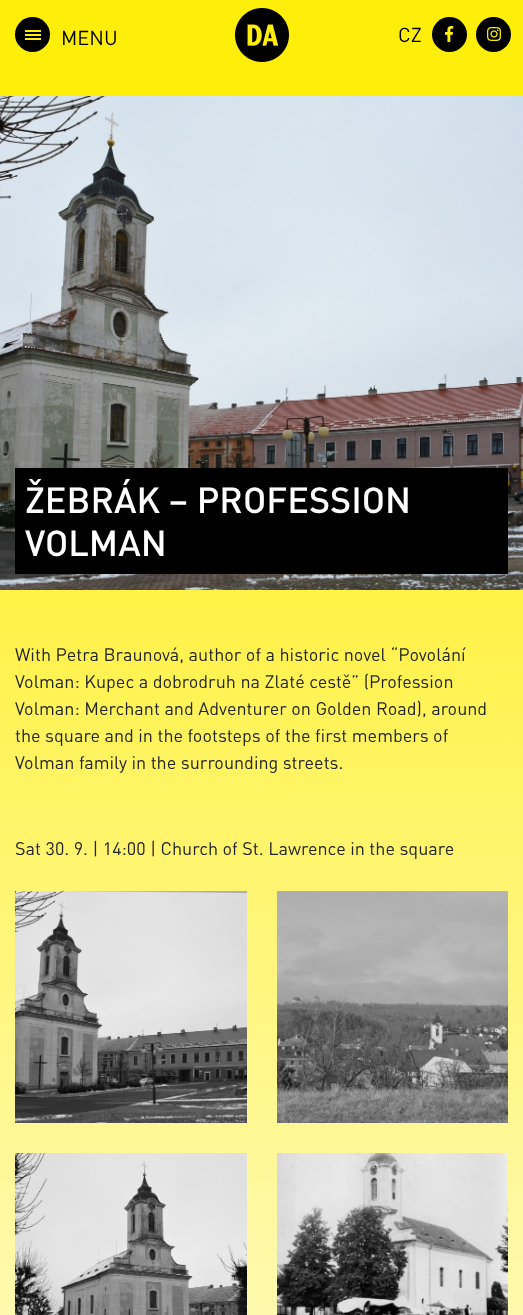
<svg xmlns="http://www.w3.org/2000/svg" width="523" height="1315">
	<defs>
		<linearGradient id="g1" gradientUnits="userSpaceOnUse" x1="261" y1="90" x2="262" y2="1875"><stop offset="0" stop-color="#FFED00" /><stop offset="1" stop-color="#FFFFFF" /></linearGradient>
	</defs>
	<rect width="100%" height="100%" fill="#FFFFFF" />
	<rect x="0" y="0" width="523" height="96" fill="#FFED0A" />
	<circle cx="32.5" cy="34.5" r="17.5" fill="#000000" />
	<rect x="25" y="30" width="16" height="2" fill="#FFED0A" />
	<rect x="25" y="34" width="16" height="2" fill="#FFED0A" />
	<rect x="25" y="38" width="16" height="2" fill="#FFED0A" />
	<text x="61" y="45" font-family="DIN" font-size="20" fill="#000000">MENU</text>
	<image x="235" y="8" width="54" height="54" href="assets/img1.png" />
	<text x="398" y="42" font-family="DIN" font-size="20" fill="#000000">CZ</text>
	<circle cx="449.5" cy="34.5" r="17.5" fill="#000000" />
	<image x="445" y="26" width="9" height="16" href="assets/img2.png" />
	<circle cx="493.5" cy="34.5" r="17.5" fill="#000000" />
	<image x="487" y="27" width="14" height="14" href="assets/img3.png" />
	<rect x="0" y="590" width="523" height="725" fill="url(#g1)" />
	<image x="0" y="96" width="523" height="494" href="assets/img4.png" />
	<rect x="15" y="468" width="493" height="106" fill="#000000" />
	<g font-family="DIN" font-size="36" font-weight="500" fill="#FFFFFF">
		<text x="25" y="513">ŽEBRÁK – PROFESSION</text>
		<text x="25" y="556">VOLMAN</text>
	</g>
	<g font-family="DIN" font-size="18" fill="#212529">
		<text x="15" y="661">With Petra Braunová, author of a historic novel “Povolání</text>
		<text x="15" y="688">Volman: Kupec a dobrodruh na Zlaté cestě” (Profession</text>
		<text x="15" y="715">Volman: Merchant and Adventurer on Golden Road), around</text>
		<text x="15" y="742">the square and in the footsteps of the first members of</text>
		<text x="15" y="769">Volman family in the surrounding streets.</text>
		<text x="15" y="855">Sat 30. 9. | 14:00 | Church of St. Lawrence in the square</text>
	</g>
	<image x="15" y="891" width="232" height="232" href="assets/img5.png" />
	<image x="277" y="891" width="231" height="232" href="assets/img6.png" />
	<image x="15" y="1153" width="232" height="162" href="assets/img7.png" />
	<image x="277" y="1153" width="231" height="162" href="assets/img8.png" />
</svg>
